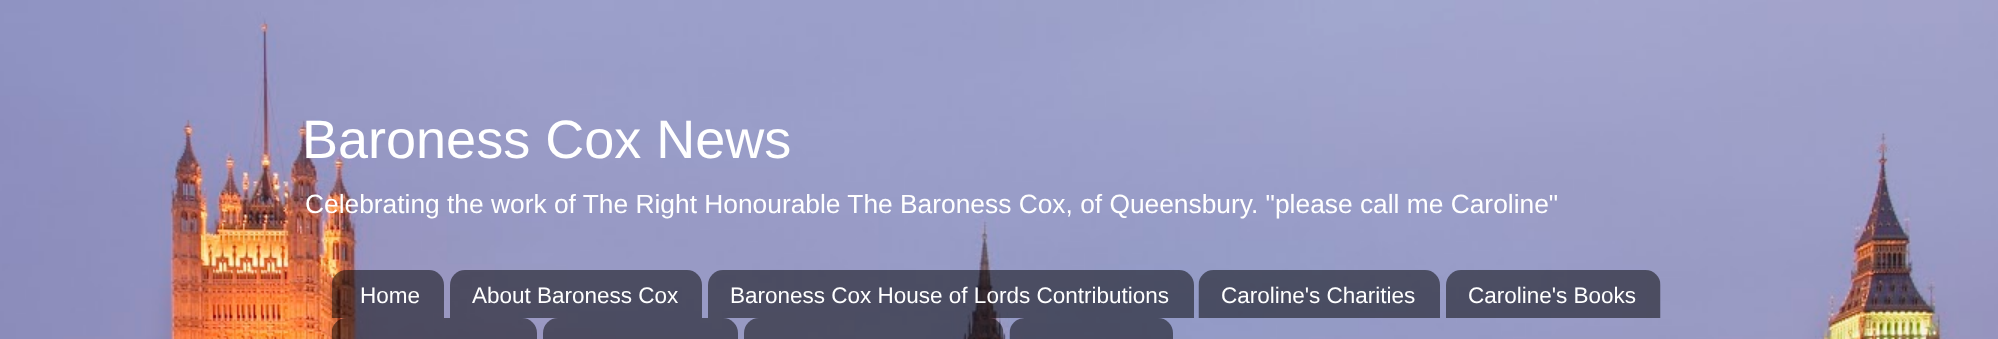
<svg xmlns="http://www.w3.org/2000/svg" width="1998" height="339">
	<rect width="100%" height="100%" fill="#FFFFFF" />
	<image x="0" y="0" width="1998" height="339" href="assets/img1.png" />
	<text x="302" y="158" font-family="Liberation Sans" font-size="54" fill="#FFFFFF">Baroness Cox News</text>
	<text x="305" y="213" font-family="Liberation Sans" font-size="26.35" fill="#FFFFFF">Celebrating the work of The Right Honourable The Baroness Cox, of Queensbury. "please call me Caroline"</text>
	<image x="331" y="270" width="113" height="48" href="assets/img2.png" />
	<text x="360" y="303" font-family="Liberation Sans" font-size="22.5" fill="#FFFFFF">Home</text>
	<image x="450" y="270" width="252" height="48" href="assets/img3.png" />
	<text x="472" y="303" font-family="Liberation Sans" font-size="22.5" fill="#FFFFFF">About Baroness Cox</text>
	<image x="708" y="270" width="486" height="48" href="assets/img4.png" />
	<text x="730" y="303" font-family="Liberation Sans" font-size="22.5" fill="#FFFFFF">Baroness Cox House of Lords Contributions</text>
	<image x="1198" y="270" width="242" height="48" href="assets/img5.png" />
	<text x="1221" y="303" font-family="Liberation Sans" font-size="22.5" fill="#FFFFFF">Caroline's Charities</text>
	<image x="1446" y="270" width="215" height="48" href="assets/img6.png" />
	<text x="1468" y="303" font-family="Liberation Sans" font-size="22.5" fill="#FFFFFF">Caroline's Books</text>
	<image x="331" y="318" width="206" height="21" href="assets/img7.png" />
	<image x="543" y="318" width="195" height="21" href="assets/img8.png" />
	<image x="744" y="318" width="260" height="21" href="assets/img9.png" />
	<image x="1009" y="318" width="164" height="21" href="assets/img10.png" />
</svg>
